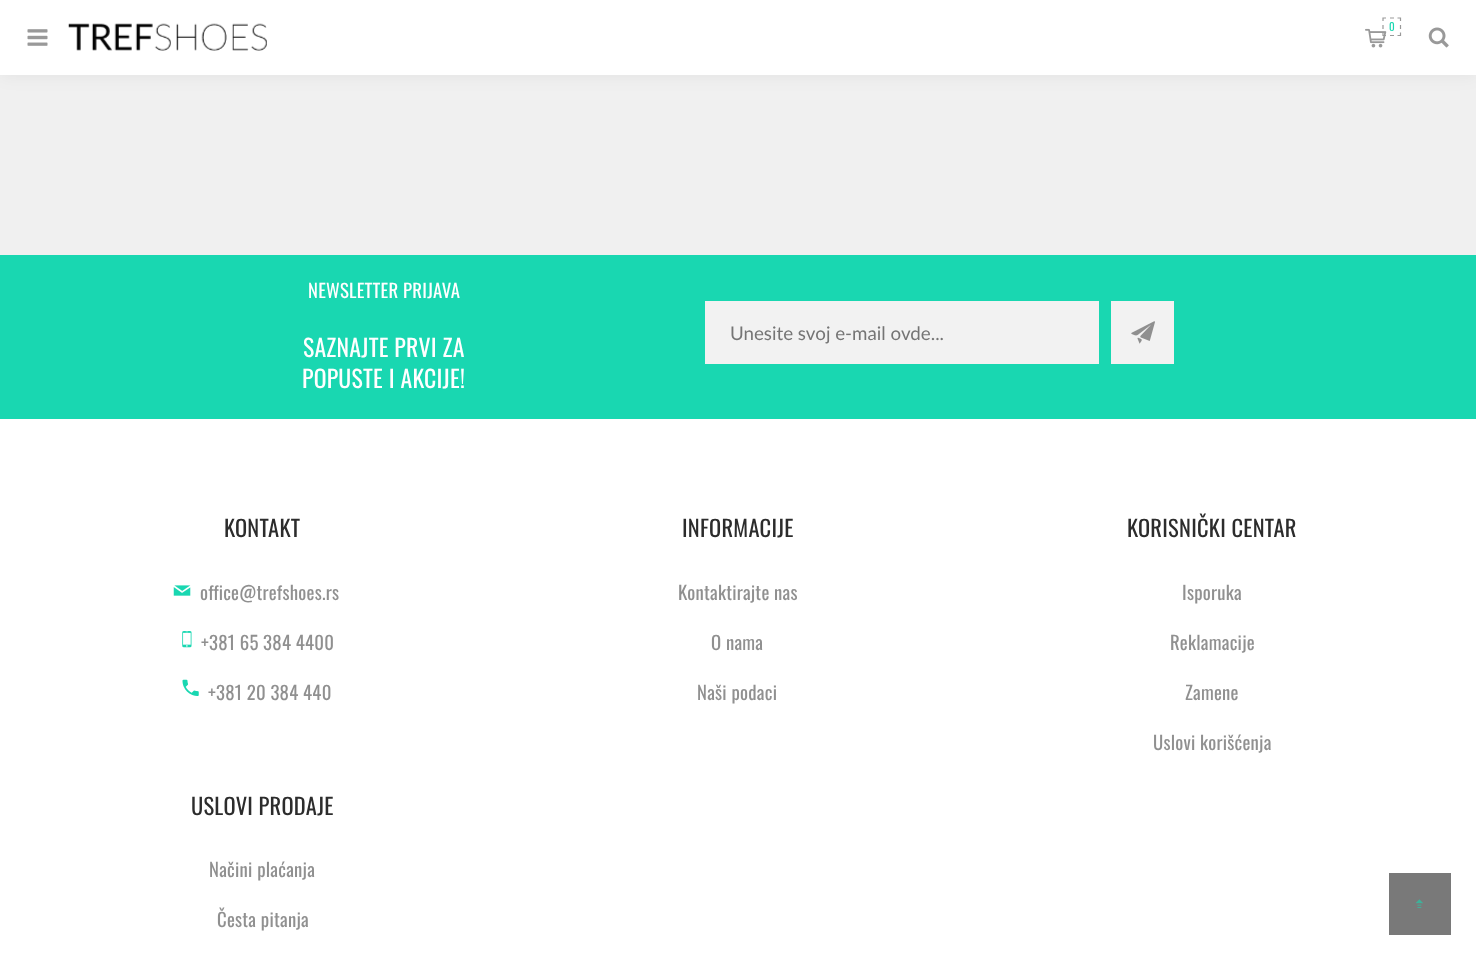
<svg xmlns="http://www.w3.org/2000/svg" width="1476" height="960">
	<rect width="100%" height="100%" fill="#F0F0F0" />
	<rect x="0" y="0" width="1476" height="75" fill="#000000" fill-opacity="0.06" filter="blur(9px)" />
	<rect x="0" y="0" width="1476" height="75" fill="#FFFFFF" />
	<image x="27" y="29" width="21" height="17" href="assets/img1.png" />
	<image x="68" y="23" width="199" height="28" href="assets/img2.png" />
	<image x="1365" y="28" width="22" height="20" href="assets/img3.png" />
	<path d="M1382.5 18H1386M1390 18H1394M1397.5 18H1401M1400.5 17.5V21M1400.5 25V29M1400.5 32.5V36M1382.5 35.5H1386M1390 35.5H1394M1397.5 35.5H1401M1383 17.5V21M1383 25V29M1383 32.5V36" fill="none" stroke="#999999" stroke-width="1.2" />
	<text x="1389" y="31" font-family="Oswald" font-size="11" letter-spacing="0.25" fill="#19D7B1">0</text>
	<image x="1428" y="27" width="21" height="21" href="assets/img4.png" />
	<rect x="0" y="419" width="1476" height="541" fill="#FFFFFF" />
	<rect x="0" y="255" width="1476" height="164" fill="#19D7B1" />
	<text x="308" y="298" font-family="Oswald" font-size="18.75" letter-spacing="0.25" fill="#FFFFFF">NEWSLETTER PRIJAVA</text>
	<g font-family="Oswald" font-size="23.75" letter-spacing="0.25" fill="#FFFFFF">
		<text x="303" y="357">SAZNAJTE PRVI ZA</text>
		<text x="302" y="388">POPUSTE I AKCIJE!</text>
	</g>
	<rect x="705" y="301" width="394" height="63" fill="#F2F2F2" />
	<text x="730" y="340" font-family="Lato" font-size="18.75" fill="#757575">Unesite svoj e-mail ovde...</text>
	<rect x="1111" y="301" width="63" height="63" fill="#F2F2F2" />
	<image x="1131" y="321" width="24" height="23" href="assets/img5.png" />
	<text x="224" y="537" font-family="Oswald" font-size="22.5" letter-spacing="0.25" fill="#2C2C2C">KONTAKT</text>
	<image x="173" y="585" width="18" height="11" href="assets/img6.png" />
	<text x="200" y="600" font-family="Oswald" font-size="18.75" letter-spacing="0.25" fill="#909090">office@trefshoes.rs</text>
	<image x="182" y="631" width="10" height="17" href="assets/img7.png" />
	<text x="201" y="650" font-family="Oswald" font-size="18.75" letter-spacing="0.25" fill="#909090">+381 65 384 4400</text>
	<image x="182" y="679" width="17" height="17" href="assets/img8.png" />
	<text x="208" y="700" font-family="Oswald" font-size="18.75" letter-spacing="0.25" fill="#909090">+381 20 384 440</text>
	<text x="682" y="537" font-family="Oswald" font-size="22.5" letter-spacing="0.25" fill="#2C2C2C">INFORMACIJE</text>
	<g font-family="Oswald" font-size="18.75" letter-spacing="0.25" fill="#909090">
		<text x="678" y="600">Kontaktirajte nas</text>
		<text x="711" y="650">O nama</text>
		<text x="697" y="700">Naši podaci</text>
	</g>
	<text x="1127" y="537" font-family="Oswald" font-size="22.5" letter-spacing="0.25" fill="#2C2C2C">KORISNIČKI CENTAR</text>
	<g font-family="Oswald" font-size="18.75" letter-spacing="0.25" fill="#909090">
		<text x="1182" y="600">Isporuka</text>
		<text x="1170" y="650">Reklamacije</text>
		<text x="1185" y="700">Zamene</text>
		<text x="1153" y="750">Uslovi korišćenja</text>
	</g>
	<text x="191" y="815" font-family="Oswald" font-size="22.5" letter-spacing="0.25" fill="#2C2C2C">USLOVI PRODAJE</text>
	<g font-family="Oswald" font-size="18.75" letter-spacing="0.25" fill="#909090">
		<text x="209" y="877">Načini plaćanja</text>
		<text x="217" y="927">Česta pitanja</text>
	</g>
	<rect x="1389" y="873" width="62" height="62" fill="#797979" />
	<image x="1415" y="899" width="8" height="9" href="assets/img9.png" />
</svg>
